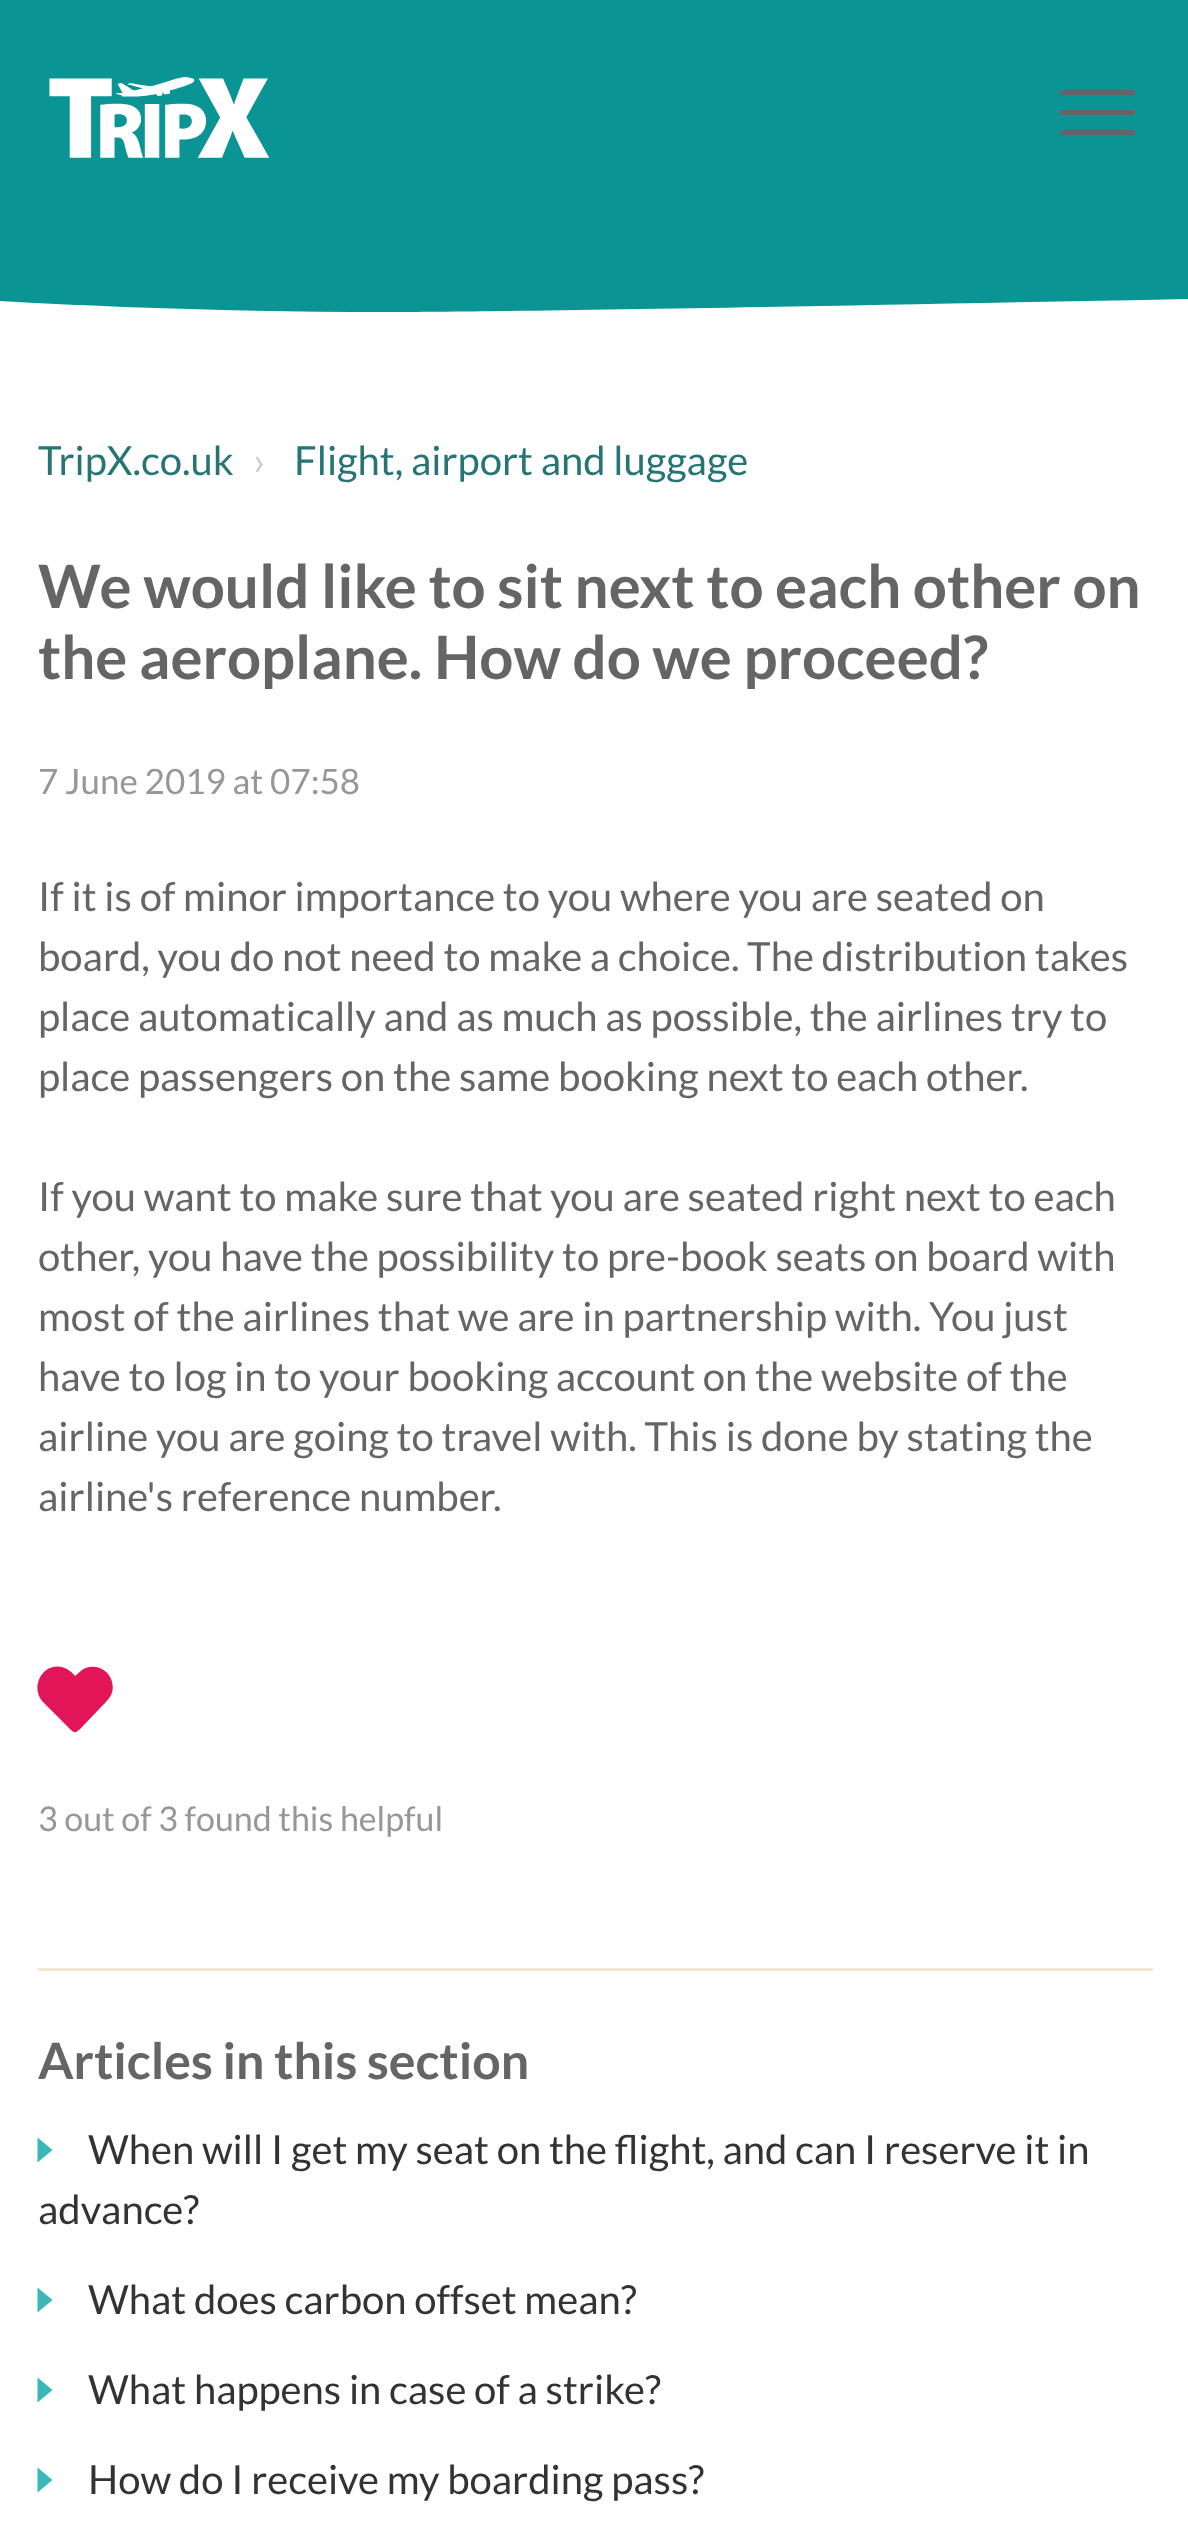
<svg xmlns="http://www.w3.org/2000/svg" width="1188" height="2528">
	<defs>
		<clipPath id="clip1"><rect x="0" y="233" width="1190" height="117" /></clipPath>
	</defs>
	<rect width="100%" height="100%" fill="#FFFFFF" />
	<rect x="0" y="0" width="1188" height="233" fill="#0A9494" />
	<image x="49" y="77" width="221" height="81" href="assets/img1.png" />
	<rect x="1060" y="110" width="75" height="5" rx="2.5" fill="#666565" />
	<rect x="1060" y="90" width="75" height="5" rx="2.5" fill="#666565" />
	<rect x="1060" y="130" width="75" height="5" rx="2.5" fill="#666565" />
	<g clip-path="url(#clip1)">
		<path d="M385 312C833 312 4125 232 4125 232H-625C-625 232-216 312 385 312Z" fill="#0A9494" />
	</g>
	<text x="38" y="475" font-family="Lato" font-size="40" fill="#277474">TripX.co.uk</text>
	<text x="253" y="475" font-family="Lato" font-size="40" fill="#CCCCCC">›</text>
	<text x="294" y="475" font-family="Lato" font-size="40" fill="#277474">Flight, airport and luggage</text>
	<g font-family="Lato" font-size="60" font-weight="700" fill="#666565">
		<text x="38" y="608">We would like to sit next to each other on</text>
		<text x="38" y="679">the aeroplane. How do we proceed?</text>
	</g>
	<text x="38" y="794" font-family="Lato" font-size="35" fill="#979797">7 June 2019 at 07:58</text>
	<g font-family="Lato" font-size="40" fill="#666565">
		<text x="38" y="911">If it is of minor importance to you where you are seated on</text>
		<text x="38" y="971">board, you do not need to make a choice. The distribution takes</text>
		<text x="38" y="1031">place automatically and as much as possible, the airlines try to</text>
		<text x="38" y="1091">place passengers on the same booking next to each other.</text>
		<text x="38" y="1211">If you want to make sure that you are seated right next to each</text>
		<text x="38" y="1271">other, you have the possibility to pre-book seats on board with</text>
		<text x="38" y="1331">most of the airlines that we are in partnership with. You just</text>
		<text x="38" y="1391">have to log in to your booking account on the website of the</text>
		<text x="38" y="1451">airline you are going to travel with. This is done by stating the</text>
		<text x="38" y="1511">airline's reference number.</text>
	</g>
	<path d="M105 1671C99 1666 89 1665 82 1670L75 1676C73 1673 70 1671 67 1669C46 1658 28 1685 43 1702L67 1726C75 1734 75 1734 83 1726L102 1706C109 1699 115 1693 112 1682C111 1678 109 1674 105 1671Z" fill="#E21558" />
	<text x="38" y="1831" font-family="Lato" font-size="34" fill="#979797">3 out of 3 found this helpful</text>
	<rect x="38" y="1968" width="1115" height="3" fill="#F4E5D3" />
	<text x="38" y="2079" font-family="Lato" font-size="50" font-weight="700" fill="#666565">Articles in this section</text>
	<path d="M37.5 2162.5V2137.5L52.5 2150Z" fill="#3CB7B7" />
	<g font-family="Lato" font-size="40" fill="#333333">
		<text x="88" y="2164">When will I get my seat on the flight, and can I reserve it in</text>
		<text x="38" y="2224">advance?</text>
	</g>
	<path d="M37.5 2312.5V2287.5L52.5 2300Z" fill="#3CB7B7" />
	<text x="88" y="2314" font-family="Lato" font-size="40" fill="#333333">What does carbon offset mean?</text>
	<path d="M37.5 2402.5V2377.5L52.5 2390Z" fill="#3CB7B7" />
	<text x="88" y="2404" font-family="Lato" font-size="40" fill="#333333">What happens in case of a strike?</text>
	<path d="M37.5 2492.5V2467.5L52.5 2480Z" fill="#3CB7B7" />
	<text x="88" y="2494" font-family="Lato" font-size="40" fill="#333333">How do I receive my boarding pass?</text>
</svg>
